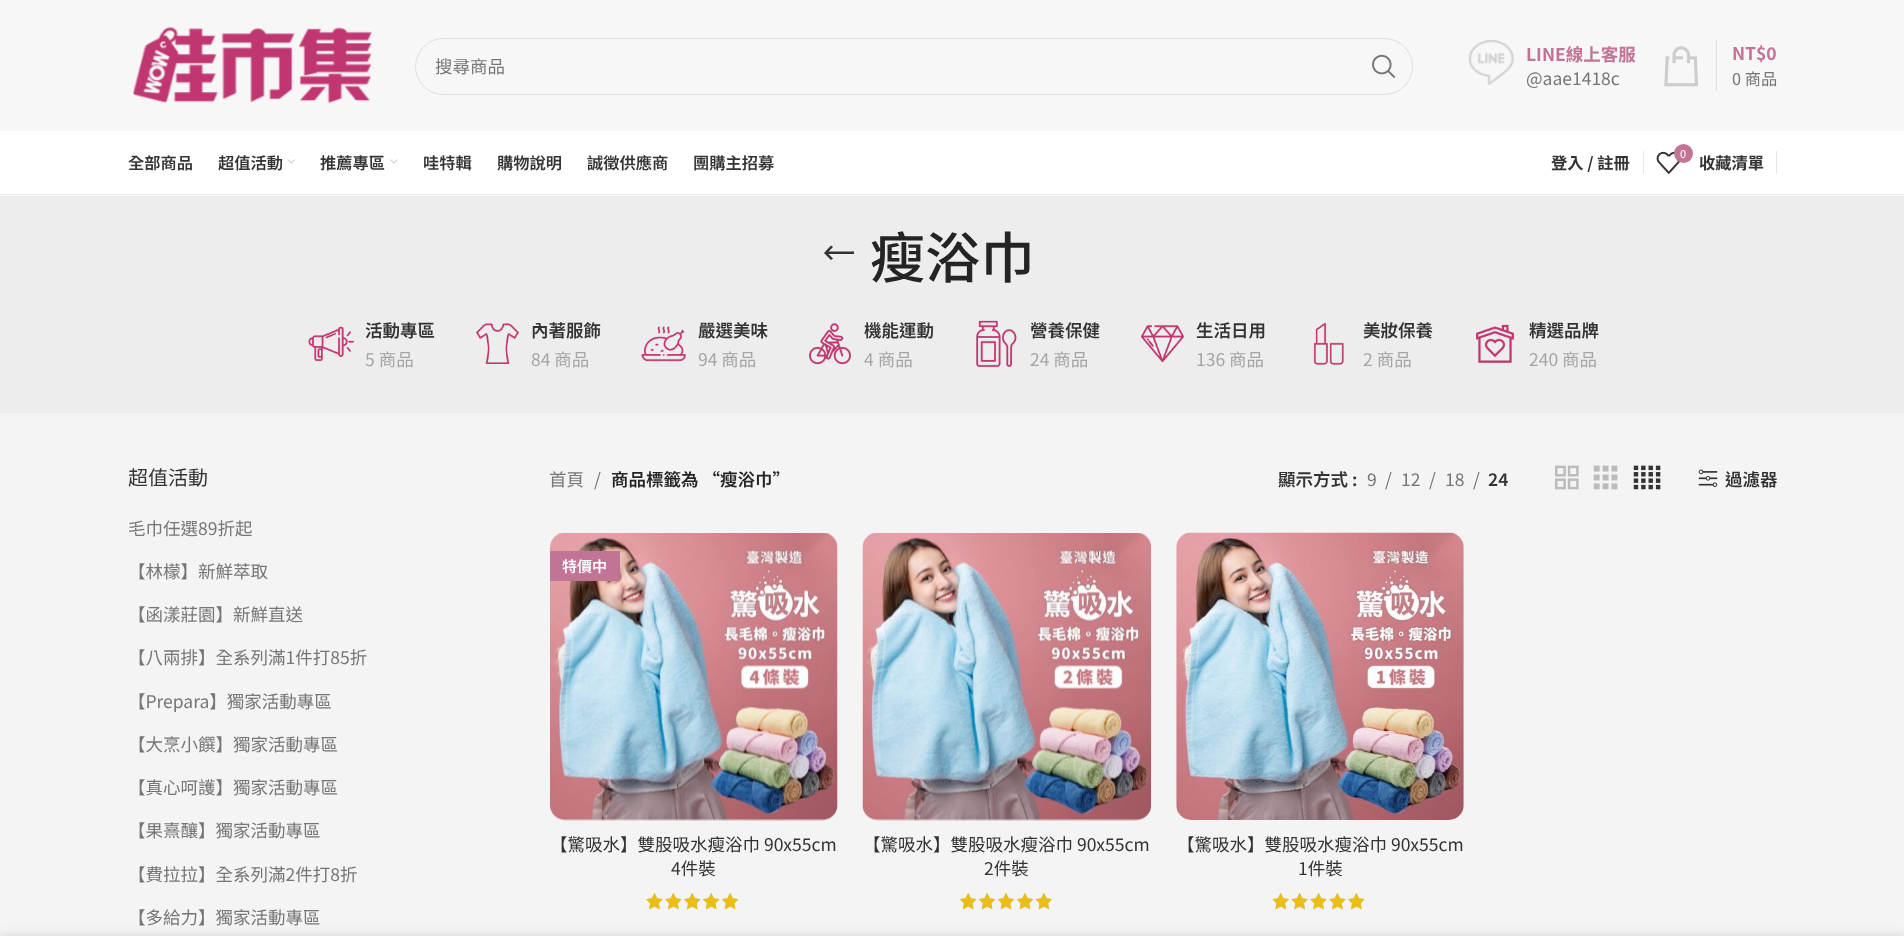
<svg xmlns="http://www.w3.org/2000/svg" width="1904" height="936">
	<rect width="100%" height="100%" fill="#FFFFFF" />
	<rect x="0" y="0" width="1904" height="131" fill="#F7F7F7" />
	<image x="133" y="27" width="239" height="77" href="assets/img1.png" />
	<rect x="415.5" y="38.5" width="997" height="56" rx="28" fill="none" stroke="#DEDEDE" />
	<text x="435" y="73" font-family="Noto Sans TC" font-size="17.5" fill="#767676">搜尋商品</text>
	<image x="1372" y="54" width="24" height="24" href="assets/img2.png" />
	<image x="1468" y="40" width="46" height="45" href="assets/img3.png" />
	<text x="1526" y="61" font-family="Noto Sans TC" font-size="17.5" font-weight="700" fill="#C17495">LINE線上客服</text>
	<text x="1526" y="85" font-family="Noto Sans TC" font-size="17.5" fill="#767676">@aae1418c</text>
	<image x="1664" y="46" width="35" height="41" href="assets/img4.png" />
	<rect x="1716" y="40" width="1" height="51" fill="#DEDEDE" />
	<text x="1732" y="60" font-family="Noto Sans TC" font-size="17.5" font-weight="700" fill="#C17495">NT$0</text>
	<text x="1732" y="85" font-family="Noto Sans TC" font-size="16.25" fill="#767676">0 商品</text>
	<rect x="0" y="194" width="1904" height="1" fill="#E6E6E6" />
	<g font-family="Noto Sans TC" font-size="16.25" font-weight="600" fill="#333333">
		<text x="128" y="169">全部商品</text>
		<text x="218" y="169">超值活動</text>
	</g>
	<image x="287" y="159" width="8" height="5" href="assets/img5.png" />
	<text x="320" y="169" font-family="Noto Sans TC" font-size="16.25" font-weight="600" fill="#333333">推薦專區</text>
	<image x="390" y="159" width="8" height="5" href="assets/img6.png" />
	<g font-family="Noto Sans TC" font-size="16.25" font-weight="600" fill="#333333">
		<text x="423" y="169">哇特輯</text>
		<text x="497" y="169">購物說明</text>
		<text x="587" y="169">誠徵供應商</text>
		<text x="693" y="169">團購主招募</text>
	</g>
	<text x="1551" y="169" font-family="Noto Sans TC" font-size="16.25" font-weight="700" fill="#333333">登入 / 註冊</text>
	<rect x="1643" y="151" width="1" height="23" fill="#E4E4E4" />
	<image x="1656" y="151" width="24" height="23" href="assets/img7.png" />
	<circle cx="1683.5" cy="153.5" r="9.5" fill="#C17495" />
	<text x="1680" y="158" font-family="Noto Sans TC" font-size="11" fill="#FFFFFF">0</text>
	<text x="1699" y="169" font-family="Noto Sans TC" font-size="16.25" font-weight="700" fill="#333333">收藏清單</text>
	<rect x="1776" y="151" width="1" height="23" fill="#E4E4E4" />
	<rect x="0" y="413" width="1904" height="523" fill="#F4F4F4" />
	<rect x="0" y="196" width="1904" height="217" fill="#EDEDED" />
	<path d="M833 258.5L828.5 254H854V251.5H828.5L833 247L831 245.5L824 253L831 260Z" fill="#333333" />
	<text x="870" y="278" font-family="Noto Sans TC" font-size="55" font-weight="500" fill="#242424">瘦浴巾</text>
	<image x="308" y="326" width="47" height="36" href="assets/img8.png" />
	<text x="365" y="337" font-family="Noto Sans TC" font-size="17.5" font-weight="600" fill="#333333">活動專區</text>
	<text x="365" y="366" font-family="Noto Sans TC" font-size="17.5" fill="#A5A5A5">5 商品</text>
	<image x="476" y="323" width="43" height="41" href="assets/img9.png" />
	<text x="531" y="337" font-family="Noto Sans TC" font-size="17.5" font-weight="600" fill="#333333">內著服飾</text>
	<text x="531" y="366" font-family="Noto Sans TC" font-size="17.5" fill="#A5A5A5">84 商品</text>
	<image x="641" y="326" width="45" height="36" href="assets/img10.png" />
	<text x="698" y="337" font-family="Noto Sans TC" font-size="17.5" font-weight="600" fill="#333333">嚴選美味</text>
	<text x="698" y="366" font-family="Noto Sans TC" font-size="17.5" fill="#A5A5A5">94 商品</text>
	<image x="809" y="323" width="42" height="42" href="assets/img11.png" />
	<text x="864" y="337" font-family="Noto Sans TC" font-size="17.5" font-weight="600" fill="#333333">機能運動</text>
	<text x="864" y="366" font-family="Noto Sans TC" font-size="17.5" fill="#A5A5A5">4 商品</text>
	<image x="976" y="320" width="41" height="47" href="assets/img12.png" />
	<text x="1030" y="337" font-family="Noto Sans TC" font-size="17.5" font-weight="600" fill="#333333">營養保健</text>
	<text x="1030" y="366" font-family="Noto Sans TC" font-size="17.5" fill="#A5A5A5">24 商品</text>
	<image x="1141" y="324" width="43" height="39" href="assets/img13.png" />
	<text x="1196" y="337" font-family="Noto Sans TC" font-size="17.5" font-weight="600" fill="#333333">生活日用</text>
	<text x="1196" y="366" font-family="Noto Sans TC" font-size="17.5" fill="#A5A5A5">136 商品</text>
	<image x="1313" y="322" width="31" height="43" href="assets/img14.png" />
	<text x="1363" y="337" font-family="Noto Sans TC" font-size="17.5" font-weight="600" fill="#333333">美妝保養</text>
	<text x="1363" y="366" font-family="Noto Sans TC" font-size="17.5" fill="#A5A5A5">2 商品</text>
	<image x="1476" y="324" width="38" height="39" href="assets/img15.png" />
	<text x="1529" y="337" font-family="Noto Sans TC" font-size="17.5" font-weight="600" fill="#333333">精選品牌</text>
	<text x="1529" y="366" font-family="Noto Sans TC" font-size="17.5" fill="#A5A5A5">240 商品</text>
	<text x="128" y="485" font-family="Noto Sans TC" font-size="20" fill="#333333">超值活動</text>
	<g font-family="Noto Sans TC" font-size="17.5" fill="#767676">
		<text x="128" y="535">毛巾任選89折起</text>
		<text x="128" y="578">【林檬】新鮮萃取</text>
		<text x="128" y="621">【函漾莊園】新鮮直送</text>
		<text x="128" y="664">【八兩排】全系列滿1件打85折</text>
		<text x="128" y="708">【Prepara】獨家活動專區</text>
		<text x="128" y="751">【大烹小饌】獨家活動專區</text>
		<text x="128" y="794">【真心呵護】獨家活動專區</text>
		<text x="128" y="837">【果熹釀】獨家活動專區</text>
		<text x="128" y="881">【費拉拉】全系列滿2件打8折</text>
		<text x="128" y="924">【多給力】獨家活動專區</text>
		<text x="549" y="486">首頁</text>
		<text x="594" y="486">/</text>
	</g>
	<text x="611" y="486" font-family="Noto Sans TC" font-size="17.5" font-weight="600" fill="#242424">商品標籤為 “瘦浴巾”</text>
	<text x="1278" y="486" font-family="Noto Sans TC" font-size="17.5" font-weight="600" fill="#333333">顯示方式 :</text>
	<g font-family="Noto Sans TC" font-size="17.5" fill="#767676">
		<text x="1367" y="486">9</text>
		<text x="1385" y="486">/</text>
		<text x="1401" y="486">12</text>
		<text x="1429" y="486">/</text>
		<text x="1445" y="486">18</text>
		<text x="1473" y="486">/</text>
	</g>
	<text x="1488" y="486" font-family="Noto Sans TC" font-size="17.5" font-weight="600" fill="#333333">24</text>
	<image x="1555" y="465" width="24" height="25" href="assets/img16.png" />
	<image x="1593" y="465" width="25" height="25" href="assets/img17.png" />
	<image x="1633" y="465" width="28" height="25" href="assets/img18.png" />
	<image x="1698" y="469" width="20" height="18" href="assets/img19.png" />
	<text x="1725" y="486" font-family="Noto Sans TC" font-size="17.5" font-weight="600" fill="#333333">過濾器</text>
	<image x="550" y="533" width="288" height="288" href="assets/img20.png" />
	<rect x="550" y="551" width="70" height="30" fill="#C17495" />
	<text x="562" y="572" font-family="Noto Sans TC" font-size="15" font-weight="600" fill="#FFFFFF">特價中</text>
	<g font-family="Noto Sans TC" font-size="17.5" fill="#333333">
		<text x="550" y="851">【驚吸水】雙股吸水瘦浴巾 90x55cm</text>
		<text x="671" y="875">4件裝</text>
	</g>
	<image x="646" y="893" width="92" height="17" href="assets/img21.png" />
	<image x="646" y="893" width="93" height="17" href="assets/img22.png" />
	<image x="862" y="533" width="290" height="288" href="assets/img23.png" />
	<g font-family="Noto Sans TC" font-size="17.5" fill="#333333">
		<text x="863" y="851">【驚吸水】雙股吸水瘦浴巾 90x55cm</text>
		<text x="984" y="875">2件裝</text>
	</g>
	<image x="960" y="893" width="92" height="17" href="assets/img24.png" />
	<image x="960" y="893" width="92" height="17" href="assets/img25.png" />
	<image x="1176" y="532" width="288" height="288" href="assets/img26.png" />
	<g font-family="Noto Sans TC" font-size="17.5" fill="#333333">
		<text x="1177" y="851">【驚吸水】雙股吸水瘦浴巾 90x55cm</text>
		<text x="1298" y="875">1件裝</text>
	</g>
	<image x="1272" y="893" width="93" height="17" href="assets/img27.png" />
	<image x="1273" y="893" width="92" height="17" href="assets/img28.png" />
	<rect x="0" y="936" width="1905" height="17" fill="#000000" fill-opacity="0.14" filter="blur(5.5px)" />
</svg>
